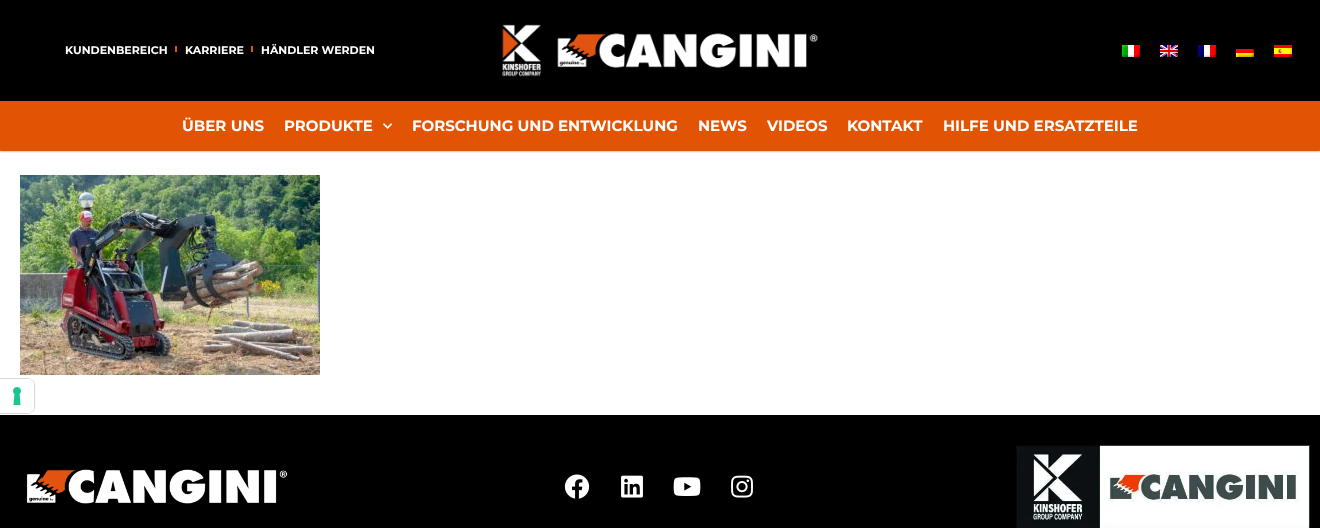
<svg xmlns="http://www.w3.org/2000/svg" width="1320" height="528">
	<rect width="100%" height="100%" fill="#FFFFFF" />
	<rect x="0" y="0" width="1320" height="101" fill="#000000" />
	<text x="65" y="54" font-family="Montserrat" font-size="11" font-weight="700" fill="#FFFFFF">KUNDENBEREICH</text>
	<rect x="175" y="46" width="2" height="6" fill="#E25303" />
	<text x="185" y="54" font-family="Montserrat" font-size="11" font-weight="700" fill="#FFFFFF">KARRIERE</text>
	<rect x="251" y="46" width="2" height="6" fill="#E25303" />
	<text x="261" y="54" font-family="Montserrat" font-size="11" font-weight="700" fill="#FFFFFF">HÄNDLER WERDEN</text>
	<image x="502" y="24" width="316" height="53" href="assets/img1.png" />
	<image x="1122" y="45" width="18" height="12" href="assets/img2.png" />
	<image x="1160" y="45" width="18" height="12" href="assets/img3.png" />
	<image x="1198" y="45" width="18" height="12" href="assets/img4.png" />
	<image x="1236" y="49" width="18" height="8" href="assets/img5.png" />
	<image x="1274" y="45" width="18" height="12" href="assets/img6.png" />
	<rect x="0" y="101" width="1320" height="50" fill="#000000" fill-opacity="0.5" filter="blur(1px)" />
	<rect x="0" y="101" width="1320" height="50" fill="#E25303" />
	<g font-family="Montserrat" font-size="15" font-weight="700" fill="#FFFFFF">
		<text x="182" y="131">ÜBER UNS</text>
		<text x="284" y="131">PRODUKTE</text>
	</g>
	<image x="383" y="123" width="9" height="6" href="assets/img7.png" />
	<g font-family="Montserrat" font-size="15" font-weight="700" fill="#FFFFFF">
		<text x="412" y="131">FORSCHUNG UND ENTWICKLUNG</text>
		<text x="698" y="131">NEWS</text>
		<text x="767" y="131">VIDEOS</text>
		<text x="847" y="131">KONTAKT</text>
		<text x="943" y="131">HILFE UND ERSATZTEILE</text>
	</g>
	<image x="20" y="175" width="300" height="200" href="assets/img8.png" />
	<rect x="0" y="415" width="1320" height="113" fill="#000000" />
	<image x="26" y="469" width="262" height="35" href="assets/img9.png" />
	<image x="564" y="474" width="26" height="25" href="assets/img10.png" />
	<image x="621" y="475" width="22" height="23" href="assets/img11.png" />
	<image x="673" y="477" width="28" height="19" href="assets/img12.png" />
	<image x="731" y="475" width="22" height="23" href="assets/img13.png" />
	<image x="1016" y="445" width="294" height="83" href="assets/img14.png" />
	<path d="M-.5 378.5H28C31.5 378.5 34.5 381.5 34.5 385V407C34.5 410.5 31.5 413.5 28 413.5H-.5Z" fill="none" stroke="#D9D9D9" />
	<path d="M0 379H28C31.5 379 34 381.5 34 385V407C34 410.5 31.5 413 28 413H0Z" fill="#FFFFFF" />
	<image x="13" y="387" width="8" height="18" href="assets/img15.png" />
</svg>
